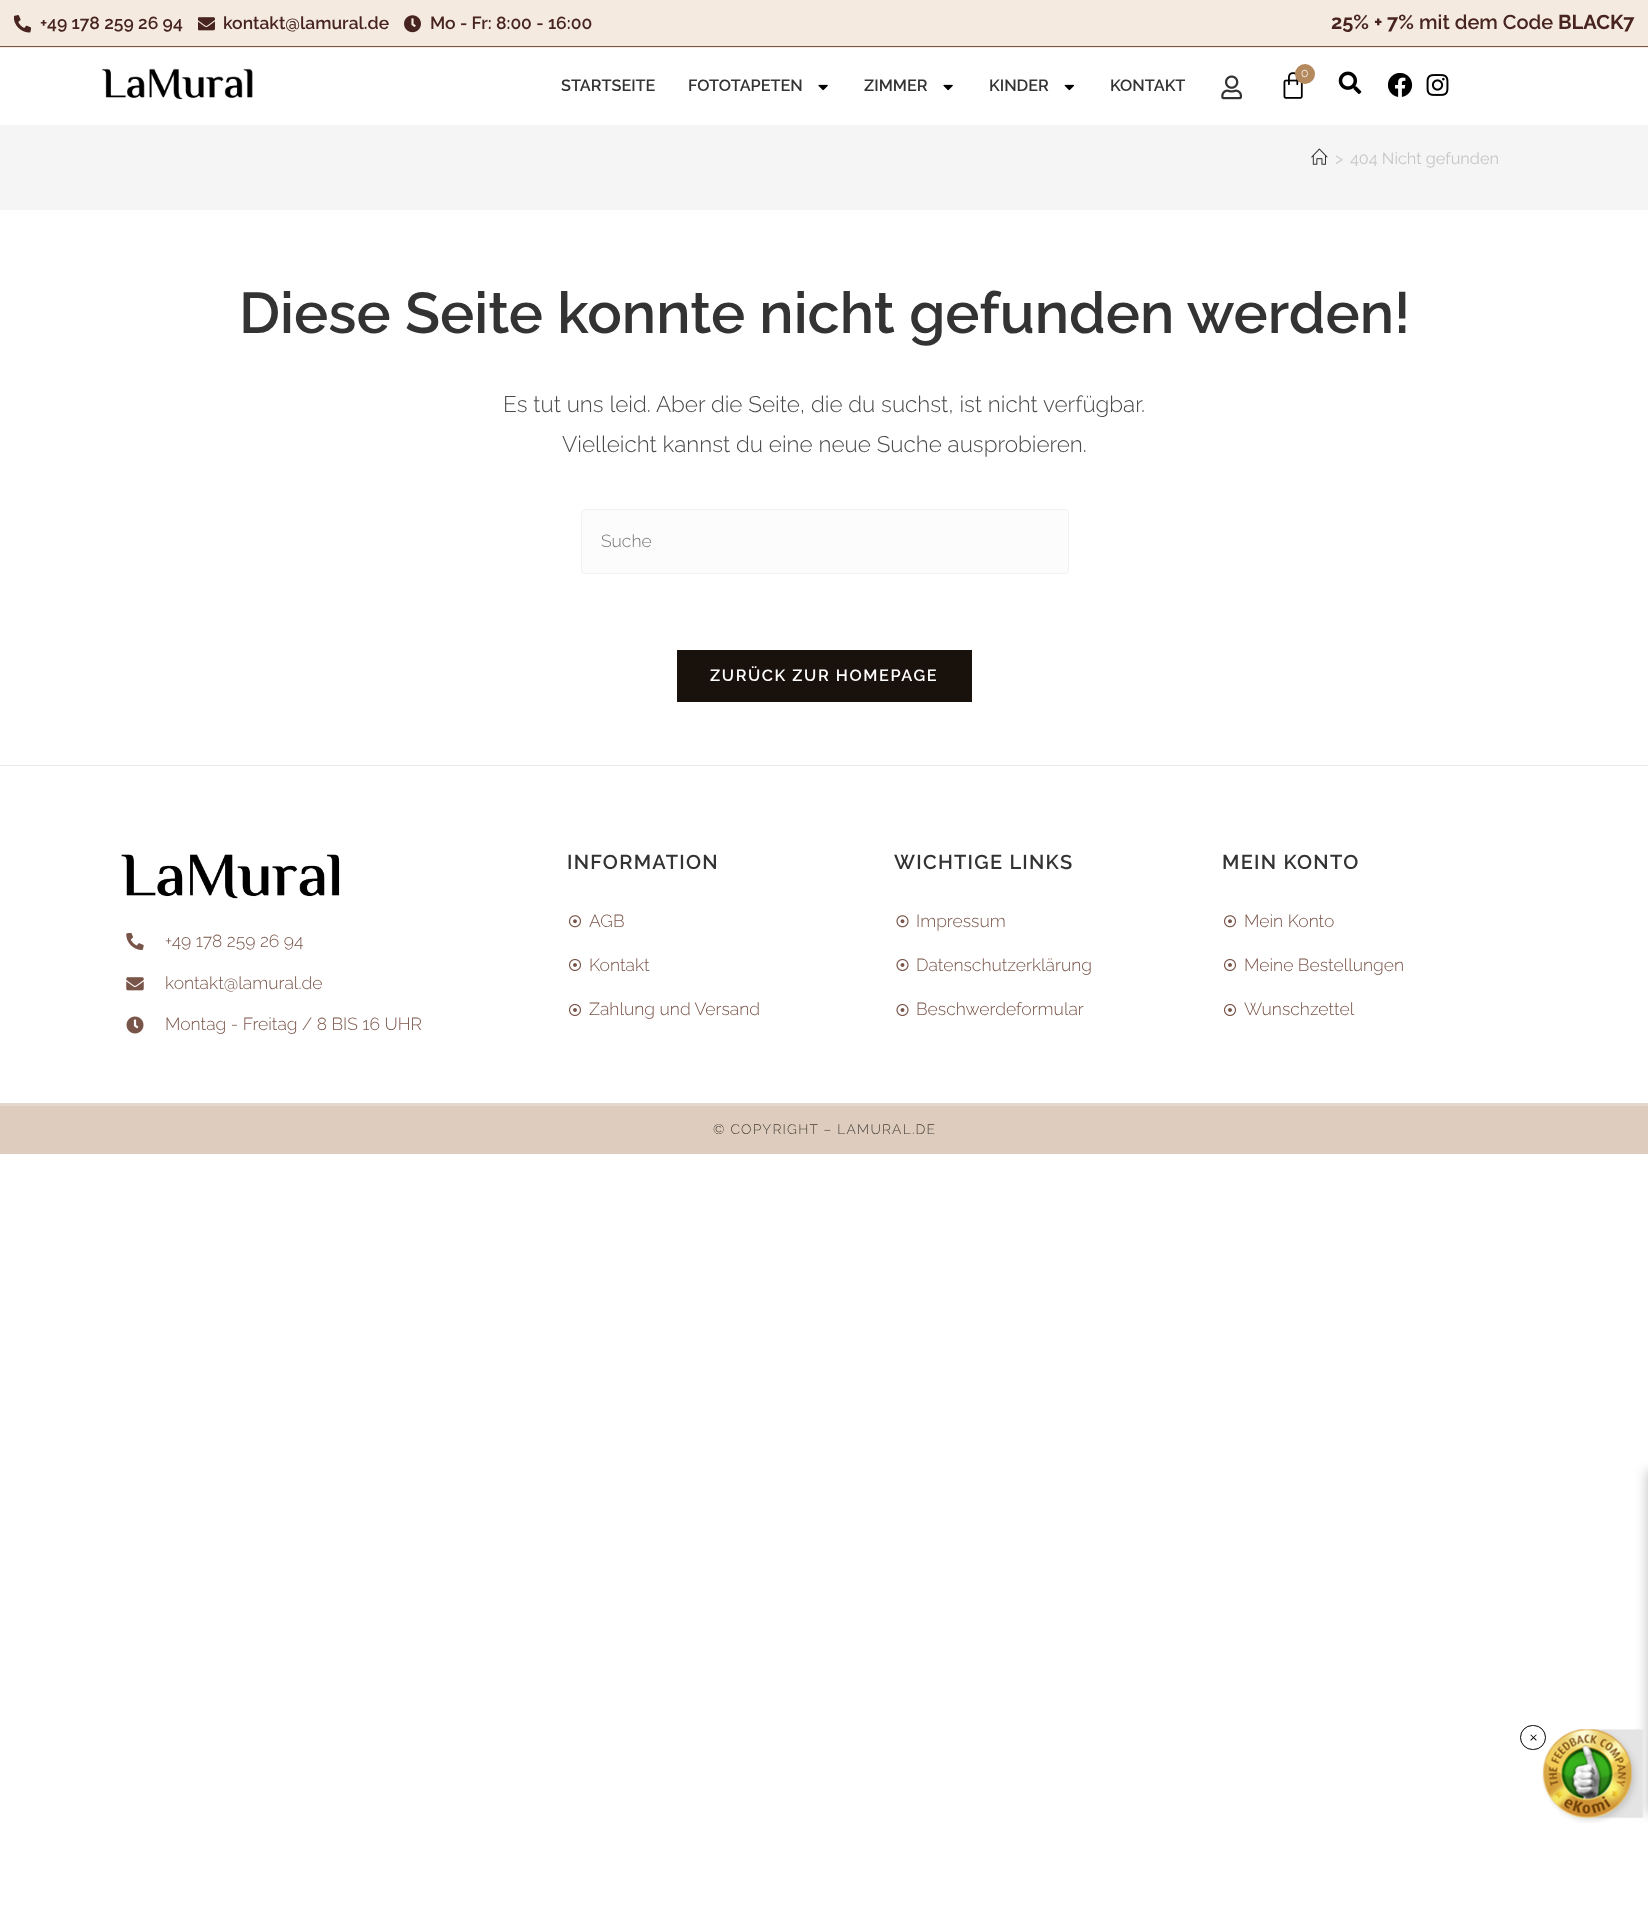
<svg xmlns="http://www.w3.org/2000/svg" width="1648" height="1912">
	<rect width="100%" height="100%" fill="#FFFFFF" />
	<rect x="0" y="0" width="1648" height="48" fill="#F5EAE0" />
	<rect x="0" y="46" width="1648" height="1" fill="#795549" />
	<image x="14" y="15" width="17" height="18" href="assets/img1.png" />
	<text x="40" y="29" font-family="Raleway" font-size="17.5" font-weight="600" fill="#47241F">+49 178 259 26 94</text>
	<image x="198" y="17" width="17" height="14" href="assets/img2.png" />
	<text x="223" y="29" font-family="Raleway" font-size="17.5" font-weight="600" fill="#47241F">kontakt@lamural.de</text>
	<image x="404" y="15" width="17" height="18" href="assets/img3.png" />
	<text x="430" y="29" font-family="Raleway" font-size="17.5" font-weight="600" fill="#47241F">Mo - Fr: 8:00 - 16:00</text>
	<text x="1331" y="29" font-family="Raleway" font-size="20" font-weight="700" fill="#47241F">25% + 7%</text>
	<text x="1419" y="29" font-family="Raleway" font-size="20" font-weight="600" fill="#47241F">mit dem Code</text>
	<text x="1558" y="29" font-family="Raleway" font-size="20" font-weight="700" fill="#47241F">BLACK7</text>
	<image x="102" y="68" width="151" height="32" href="assets/img4.png" />
	<g font-family="Raleway" font-size="16.25" font-weight="600" fill="#333333">
		<text x="561" y="91">STARTSEITE</text>
		<text x="688" y="91">FOTOTAPETEN</text>
	</g>
	<image x="818" y="84" width="10" height="7" href="assets/img5.png" />
	<text x="864" y="91" font-family="Raleway" font-size="16.25" font-weight="600" fill="#333333">ZIMMER</text>
	<image x="943" y="84" width="10" height="7" href="assets/img5.png" />
	<text x="989" y="91" font-family="Raleway" font-size="16.25" font-weight="600" fill="#333333">KINDER</text>
	<image x="1064" y="84" width="11" height="7" href="assets/img6.png" />
	<text x="1110" y="91" font-family="Raleway" font-size="16.25" font-weight="600" fill="#333333">KONTAKT</text>
	<image x="1221" y="75" width="22" height="25" href="assets/img7.png" />
	<image x="1283" y="72" width="20" height="27" href="assets/img8.png" />
	<circle cx="1305" cy="74" r="10" fill="#B5895E" />
	<text x="1301" y="77" font-family="Raleway" font-size="12" font-weight="300" fill="#FFFFFF">0</text>
	<image x="1338" y="71" width="24" height="23" href="assets/img9.png" />
	<image x="1388" y="73" width="25" height="24" href="assets/img10.png" />
	<image x="1426" y="74" width="23" height="22" href="assets/img11.png" />
	<rect x="0" y="125" width="1648" height="85" fill="#F5F5F5" />
	<image x="1311" y="148" width="17" height="17" href="assets/img12.png" />
	<g font-family="Raleway" font-size="16.25" fill="#C6C6C6">
		<text x="1335" y="164">&gt;</text>
		<text x="1350" y="164">404 Nicht gefunden</text>
	</g>
	<text x="239" y="333" font-family="Raleway" font-size="57.5" font-weight="600" fill="#333333">Diese Seite konnte nicht gefunden werden!</text>
	<g font-family="Raleway" font-size="22.5" font-weight="300" fill="#4A4A4A">
		<text x="503" y="412">Es tut uns leid. Aber die Seite, die du suchst, ist nicht verfügbar.</text>
		<text x="562" y="452">Vielleicht kannst du eine neue Suche ausprobieren.</text>
	</g>
	<rect x="581.5" y="509.5" width="487" height="64" rx="3.5" fill="#FCFCFC" stroke="#F2F2F2" />
	<text x="601" y="547" font-family="Raleway" font-size="17.5" font-weight="300" fill="#757575">Suche</text>
	<rect x="677" y="650" width="295" height="52" fill="#19110B" />
	<text x="710" y="681" font-family="Raleway" font-size="16.25" font-weight="600" letter-spacing="1.6" fill="#FFFFFF">ZURÜCK ZUR HOMEPAGE</text>
	<rect x="0" y="765" width="1648" height="1" fill="#EAEAEA" />
	<image x="121" y="854" width="219" height="45" href="assets/img13.png" />
	<image x="126" y="933" width="18" height="17" href="assets/img14.png" />
	<text x="165" y="947" font-family="Raleway" font-size="17.5" font-weight="300" fill="#795549">+49 178 259 26 94</text>
	<image x="126" y="977" width="18" height="14" href="assets/img15.png" />
	<text x="165" y="989" font-family="Raleway" font-size="17.5" font-weight="300" fill="#795549">kontakt@lamural.de</text>
	<image x="126" y="1016" width="18" height="18" href="assets/img16.png" />
	<text x="165" y="1030" font-family="Raleway" font-size="17.5" font-weight="300" fill="#795549">Montag - Freitag / 8 BIS 16 UHR</text>
	<text x="567" y="869" font-family="Raleway" font-size="20" font-weight="600" letter-spacing="1.25" fill="#333333">INFORMATION</text>
	<image x="569" y="915" width="12" height="13" href="assets/img17.png" />
	<text x="589" y="927" font-family="Raleway" font-size="17.5" font-weight="300" fill="#795549">AGB</text>
	<image x="569" y="959" width="12" height="12" href="assets/img18.png" />
	<text x="589" y="971" font-family="Raleway" font-size="17.5" font-weight="300" fill="#795549">Kontakt</text>
	<image x="569" y="1004" width="12" height="12" href="assets/img18.png" />
	<text x="589" y="1015" font-family="Raleway" font-size="17.5" font-weight="300" fill="#795549">Zahlung und Versand</text>
	<text x="894" y="869" font-family="Raleway" font-size="20" font-weight="600" letter-spacing="1.25" fill="#333333">WICHTIGE LINKS</text>
	<image x="896" y="915" width="13" height="13" href="assets/img19.png" />
	<text x="916" y="927" font-family="Raleway" font-size="17.5" font-weight="300" fill="#795549">Impressum</text>
	<image x="896" y="959" width="13" height="12" href="assets/img20.png" />
	<text x="916" y="971" font-family="Raleway" font-size="17.5" font-weight="300" fill="#795549">Datenschutzerklärung</text>
	<image x="896" y="1004" width="13" height="12" href="assets/img20.png" />
	<text x="916" y="1015" font-family="Raleway" font-size="17.5" font-weight="300" fill="#795549">Beschwerdeformular</text>
	<text x="1222" y="869" font-family="Raleway" font-size="20" font-weight="600" letter-spacing="1.25" fill="#333333">MEIN KONTO</text>
	<image x="1224" y="915" width="12" height="13" href="assets/img17.png" />
	<text x="1244" y="927" font-family="Raleway" font-size="17.5" font-weight="300" fill="#795549">Mein Konto</text>
	<image x="1224" y="959" width="12" height="12" href="assets/img18.png" />
	<text x="1244" y="971" font-family="Raleway" font-size="17.5" font-weight="300" fill="#795549">Meine Bestellungen</text>
	<image x="1224" y="1004" width="12" height="12" href="assets/img18.png" />
	<text x="1244" y="1015" font-family="Raleway" font-size="17.5" font-weight="300" fill="#795549">Wunschzettel</text>
	<rect x="0" y="1106" width="1648" height="48" fill="#DECDBE" />
	<rect x="0" y="1103" width="1648" height="3" fill="#E5D7CB" />
	<text x="713" y="1134" font-family="Raleway" font-size="13.75" font-weight="300" letter-spacing="1.25" fill="#433E39">© COPYRIGHT – LAMURAL.DE</text>
	<rect x="1646" y="1471" width="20" height="343" fill="#000000" fill-opacity="0.2" filter="blur(6px)" />
	<image x="1542" y="1729" width="102" height="94" href="assets/img21.png" />
	<rect x="1520.5" y="1725.5" width="25" height="24" rx="12" fill="none" stroke="#000000" />
	<text x="1529" y="1743" font-family="Raleway" font-size="20" font-weight="300" fill="#000000">×</text>
</svg>
